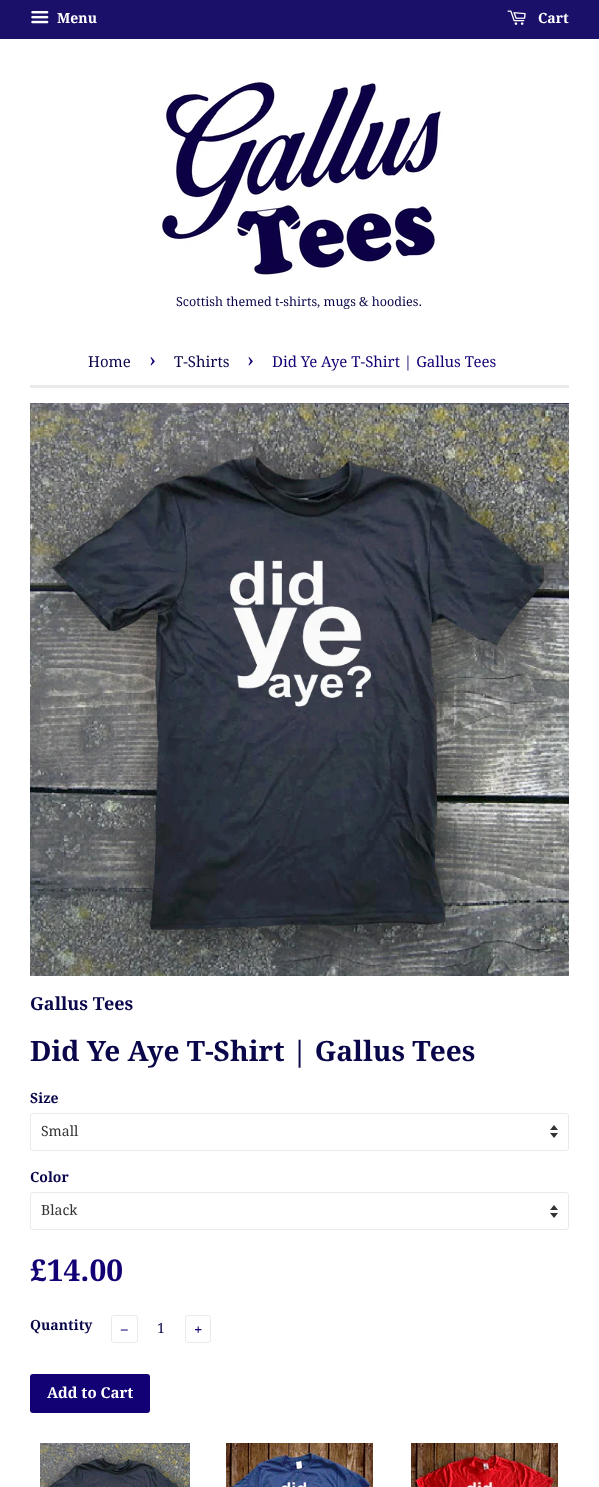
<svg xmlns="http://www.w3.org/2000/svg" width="599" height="1487">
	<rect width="100%" height="100%" fill="#FFFFFF" />
	<rect x="0" y="0" width="599" height="39" fill="#1A0F69" />
	<image x="31" y="11" width="18" height="13" href="assets/img1.png" />
	<text x="57" y="23" font-family="Droid Serif" font-size="14" font-weight="700" fill="#FFFFFF">Menu</text>
	<image x="507" y="10" width="19" height="15" href="assets/img2.png" />
	<text x="538" y="23" font-family="Droid Serif" font-size="14" font-weight="700" fill="#FFFFFF">Cart</text>
	<image x="161" y="79" width="282" height="200" href="assets/img3.png" />
	<text x="176" y="306" font-family="Droid Serif" font-size="12.6" fill="#090649">Scottish themed t-shirts, mugs &amp; hoodies.</text>
	<rect x="30" y="385" width="539" height="3" fill="#EAEAEA" />
	<text x="88" y="367" font-family="Droid Serif" font-size="15" fill="#090649">Home</text>
	<text x="149" y="367" font-family="Droid Serif" font-size="21" fill="#120174">›</text>
	<text x="174" y="367" font-family="Droid Serif" font-size="15" fill="#090649">T-Shirts</text>
	<text x="247" y="367" font-family="Droid Serif" font-size="21" fill="#120174">›</text>
	<text x="272" y="367" font-family="Droid Serif" font-size="15" fill="#120174">Did Ye Aye T-Shirt | Gallus Tees</text>
	<image x="30" y="403" width="539" height="573" href="assets/img4.png" />
	<text x="30" y="1010" font-family="Droid Serif" font-size="18" font-weight="700" fill="#090649">Gallus Tees</text>
	<text x="30" y="1061" font-family="Droid Serif" font-size="28" font-weight="700" fill="#090649">Did Ye Aye T-Shirt | Gallus Tees</text>
	<text x="30" y="1103" font-family="Droid Serif" font-size="14" font-weight="700" fill="#090649">Size</text>
	<image x="550" y="1125" width="8" height="13" href="assets/img5.png" />
	<rect x="30.5" y="1113.5" width="538" height="37" rx="2.5" fill="none" stroke="#EAEAEA" />
	<text x="41" y="1136" font-family="Droid Serif" font-size="14" fill="#333333">Small</text>
	<text x="30" y="1182" font-family="Droid Serif" font-size="14" font-weight="700" fill="#090649">Color</text>
	<image x="550" y="1205" width="8" height="13" href="assets/img5.png" />
	<rect x="30.5" y="1192.5" width="538" height="37" rx="2.5" fill="none" stroke="#EAEAEA" />
	<text x="41" y="1215" font-family="Droid Serif" font-size="14" fill="#333333">Black</text>
	<text x="30" y="1281" font-family="Droid Serif" font-size="30" font-weight="700" fill="#120174">£14.00</text>
	<text x="30" y="1330" font-family="Droid Serif" font-size="14" font-weight="700" fill="#090649">Quantity</text>
	<rect x="111.5" y="1315.5" width="26" height="27" rx="2.5" fill="none" stroke="#EAEAEA" />
	<text x="120" y="1335" font-family="Liberation Serif" font-size="15" font-weight="700" fill="#120174">−</text>
	<text x="157" y="1333" font-family="Droid Serif" font-size="14" fill="#090649">1</text>
	<rect x="185.5" y="1315.5" width="25" height="27" rx="2.5" fill="none" stroke="#EAEAEA" />
	<text x="194" y="1335" font-family="Droid Serif" font-size="15" font-weight="700" fill="#120174">+</text>
	<rect x="30" y="1374" width="120" height="39" rx="3" fill="#120174" />
	<text x="47" y="1398" font-family="Droid Serif" font-size="15" font-weight="700" fill="#FFFFFF">Add to Cart</text>
	<image x="40" y="1443" width="150" height="44" href="assets/img6.png" />
	<image x="226" y="1443" width="147" height="44" href="assets/img7.png" />
	<image x="411" y="1443" width="147" height="44" href="assets/img8.png" />
</svg>
